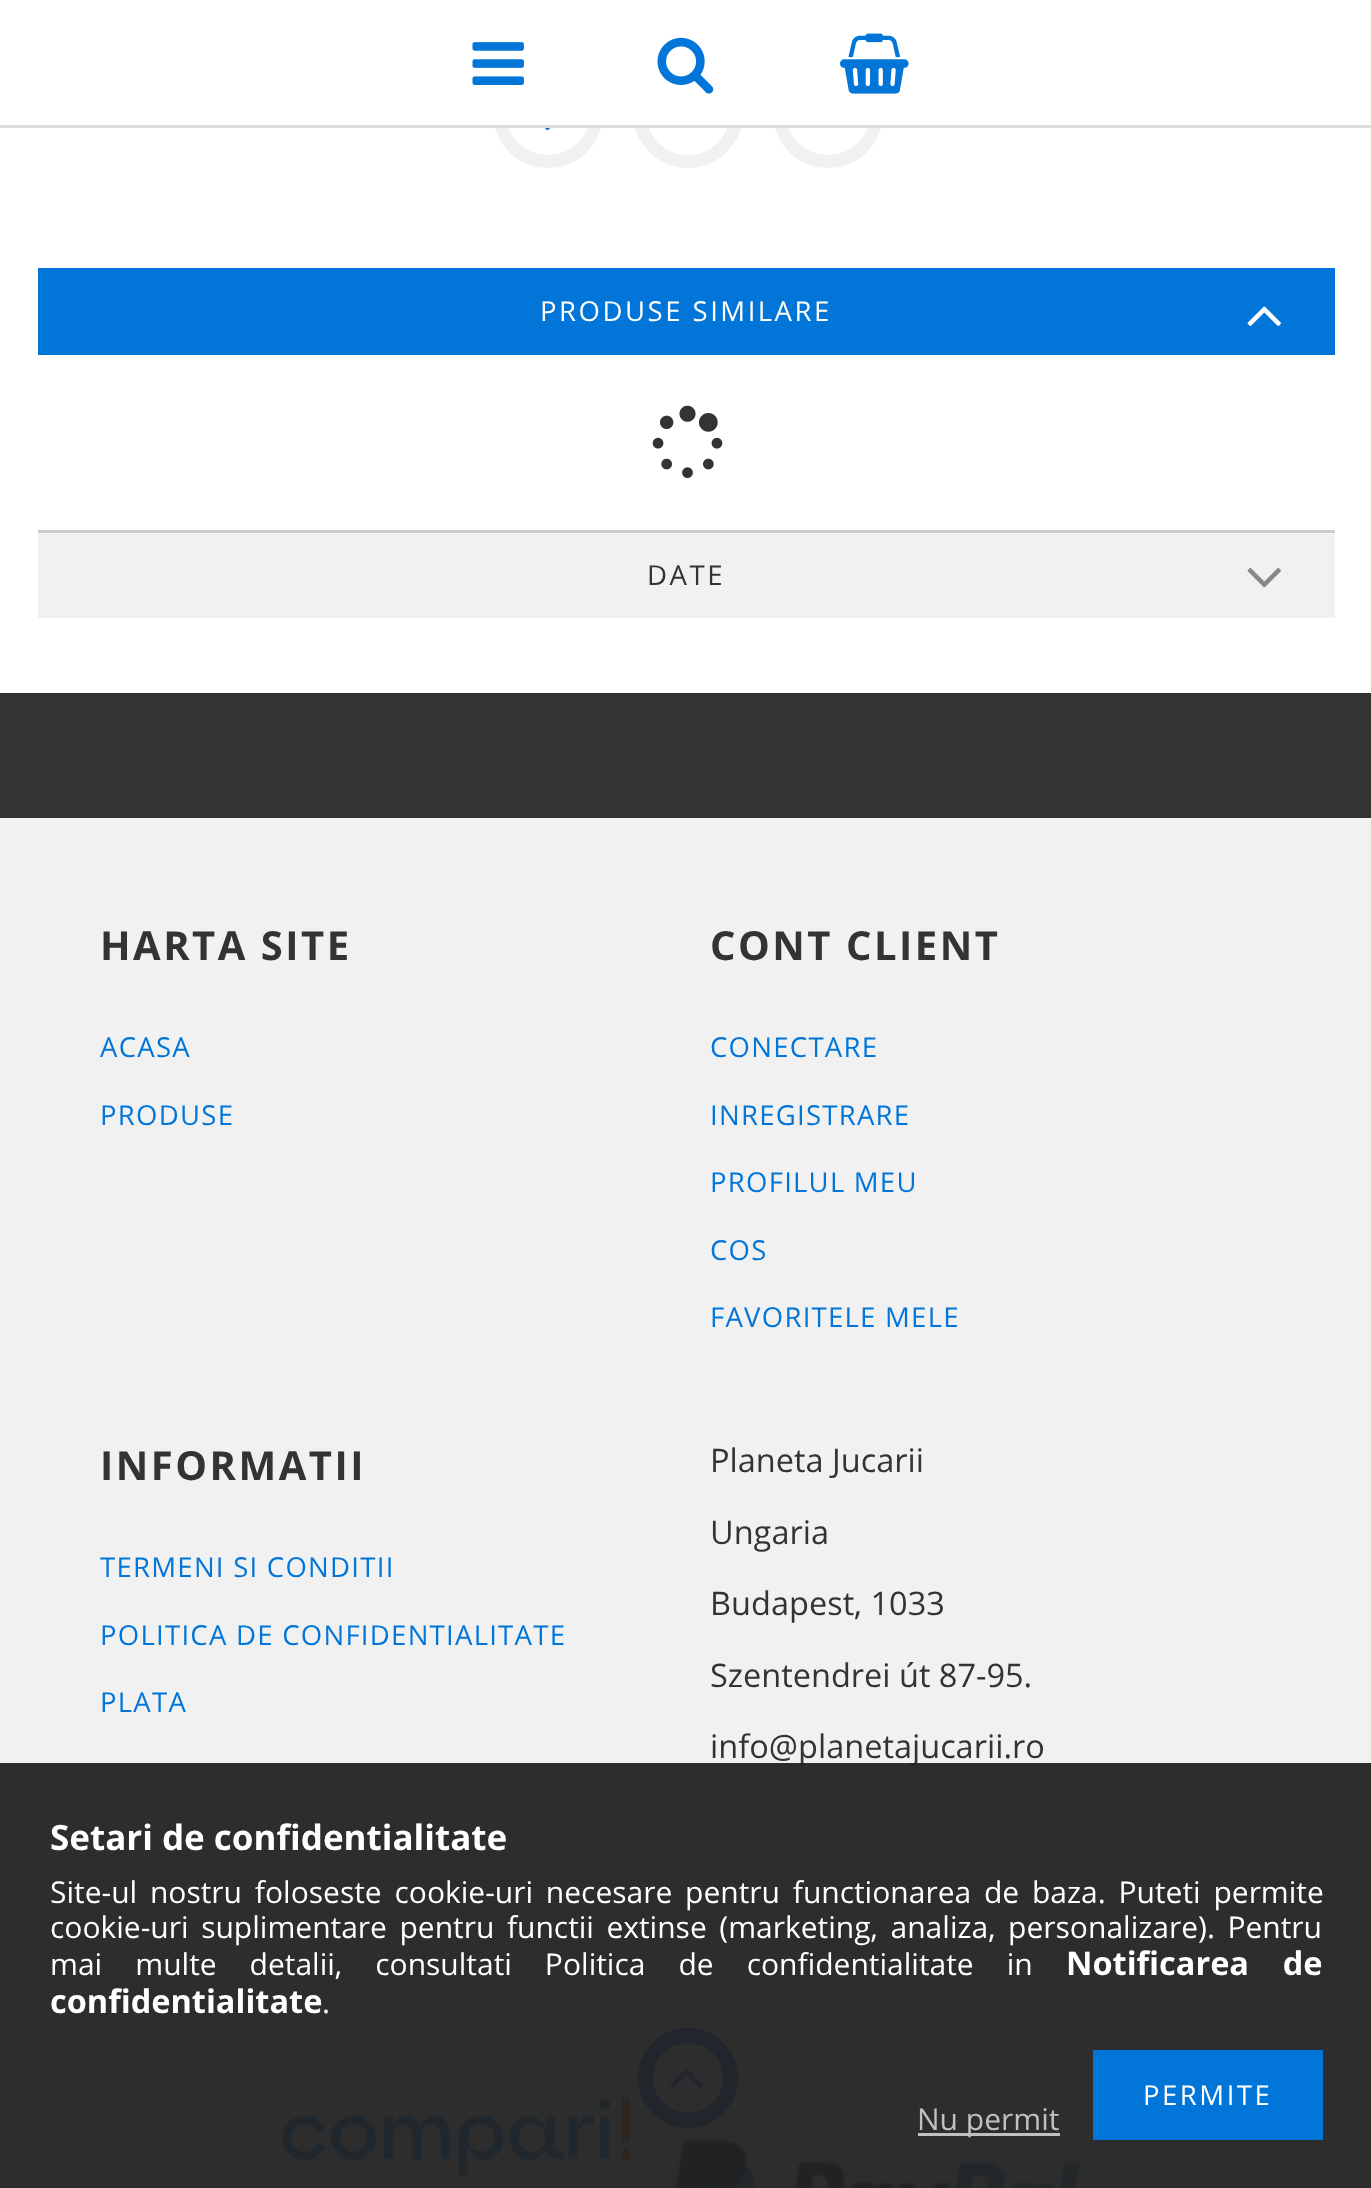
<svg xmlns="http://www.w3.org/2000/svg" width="1371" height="2188">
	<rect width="100%" height="100%" fill="#FFFFFF" />
	<circle cx="548" cy="113" r="48.5" fill="none" stroke="#F1F1F1" stroke-width="13" />
	<circle cx="688" cy="113" r="48.5" fill="none" stroke="#F1F1F1" stroke-width="13" />
	<circle cx="828" cy="113" r="48.5" fill="none" stroke="#F1F1F1" stroke-width="13" />
	<rect x="493" y="58" width="390" height="67" fill="#FFFFFF" />
	<rect x="0" y="125" width="1371" height="3" fill="#DDDDDD" />
	<image x="472" y="42" width="52" height="43" href="assets/img1.png" />
	<image x="657" y="37" width="57" height="57" href="assets/img2.png" />
	<image x="840" y="33" width="69" height="61" href="assets/img3.png" />
	<image x="544" y="128" width="7" height="3" href="assets/img4.png" />
	<rect x="38" y="268" width="1297" height="87" fill="#0275D8" />
	<text x="540" y="321" font-family="Open Sans" font-size="27.5" letter-spacing="2.5" fill="#FFFFFF">PRODUSE SIMILARE</text>
	<image x="1247" y="306" width="34" height="20" href="assets/img5.png" />
	<image x="652" y="405" width="71" height="73" href="assets/img6.png" />
	<rect x="38" y="533" width="1297" height="85" fill="#F1F1F1" />
	<rect x="38" y="530" width="1297" height="3" fill="#CCCCCC" />
	<text x="647" y="585" font-family="Open Sans" font-size="27.5" letter-spacing="2.5" fill="#333333">DATE</text>
	<image x="1247" y="568" width="34" height="20" href="assets/img7.png" />
	<rect x="0" y="693" width="1371" height="125" fill="#333333" />
	<rect x="0" y="818" width="1371" height="1225" fill="#F1F1F1" />
	<text x="100" y="960" font-family="Open Sans" font-size="40" font-weight="700" letter-spacing="2.5" fill="#333333">HARTA SITE</text>
	<g font-family="Open Sans" font-size="27.5" letter-spacing="1.25" fill="#0275D8">
		<text x="100" y="1057">ACASA</text>
		<text x="100" y="1125">PRODUSE</text>
	</g>
	<text x="710" y="960" font-family="Open Sans" font-size="40" font-weight="700" letter-spacing="2.5" fill="#333333">CONT CLIENT</text>
	<g font-family="Open Sans" font-size="27.5" letter-spacing="1.25" fill="#0275D8">
		<text x="710" y="1057">CONECTARE</text>
		<text x="710" y="1125">INREGISTRARE</text>
		<text x="710" y="1192">PROFILUL MEU</text>
		<text x="710" y="1260">COS</text>
		<text x="710" y="1327">FAVORITELE MELE</text>
	</g>
	<text x="100" y="1480" font-family="Open Sans" font-size="40" font-weight="700" letter-spacing="2.5" fill="#333333">INFORMATII</text>
	<g font-family="Open Sans" font-size="27.5" letter-spacing="1.25" fill="#0275D8">
		<text x="100" y="1577">TERMENI SI CONDITII</text>
		<text x="100" y="1645">POLITICA DE CONFIDENTIALITATE</text>
		<text x="100" y="1712">PLATA</text>
	</g>
	<g font-family="Open Sans" font-size="32.5" fill="#333333">
		<text x="710" y="1472">Planeta Jucarii</text>
		<text x="710" y="1544">Ungaria</text>
		<text x="710" y="1615">Budapest, 1033</text>
		<text x="710" y="1687">Szentendrei út 87-95.</text>
		<text x="710" y="1758">info@planetajucarii.ro</text>
	</g>
	<image x="283" y="2098" width="347" height="77" href="assets/img8.png" />
	<image x="674" y="2140" width="406" height="48" href="assets/img9.png" />
	<circle cx="688" cy="2078" r="42.5" fill="#FFFFFF" fill-opacity="0.8" stroke="#0275D8" stroke-width="15" />
	<image x="670" y="2069" width="34" height="20" href="assets/img10.png" />
	<rect x="0" y="1763" width="1371" height="425" fill="#222222" fill-opacity="0.95" />
	<text x="50" y="1850" font-family="Open Sans" font-size="35" font-weight="700" fill="#FFFFFF">Setari de confidentialitate</text>
	<g font-family="Open Sans" font-size="30" fill="#FFFFFF">
		<text x="50" y="1903" word-spacing="5">Site-ul nostru foloseste cookie-uri necesare pentru functionarea de baza. Puteti permite</text>
		<text x="50" y="1938" word-spacing="4.75">cookie-uri suplimentare pentru functii extinse (marketing, analiza, personalizare). Pentru</text>
		<text x="50" y="1975" word-spacing="25.25">mai multe detalii, consultati Politica de confidentialitate in</text>
	</g>
	<g font-family="Open Sans" font-size="32.5" font-weight="700" fill="#FFFFFF">
		<text x="1066" y="1975" word-spacing="25.25">Notificarea de</text>
		<text x="50" y="2013">confidentialitate</text>
	</g>
	<text x="322" y="2013" font-family="Open Sans" font-size="30" fill="#FFFFFF">.</text>
	<rect x="1093" y="2050" width="230" height="90" fill="#0275D8" />
	<text x="1143" y="2105" font-family="Open Sans" font-size="27.5" letter-spacing="2.5" fill="#FFFFFF">PERMITE</text>
	<rect x="918" y="2133" width="142" height="3" fill="#C0C0C0" />
	<text x="917" y="2130" font-family="Open Sans" font-size="30" fill="#C0C0C0">Nu permit</text>
</svg>
